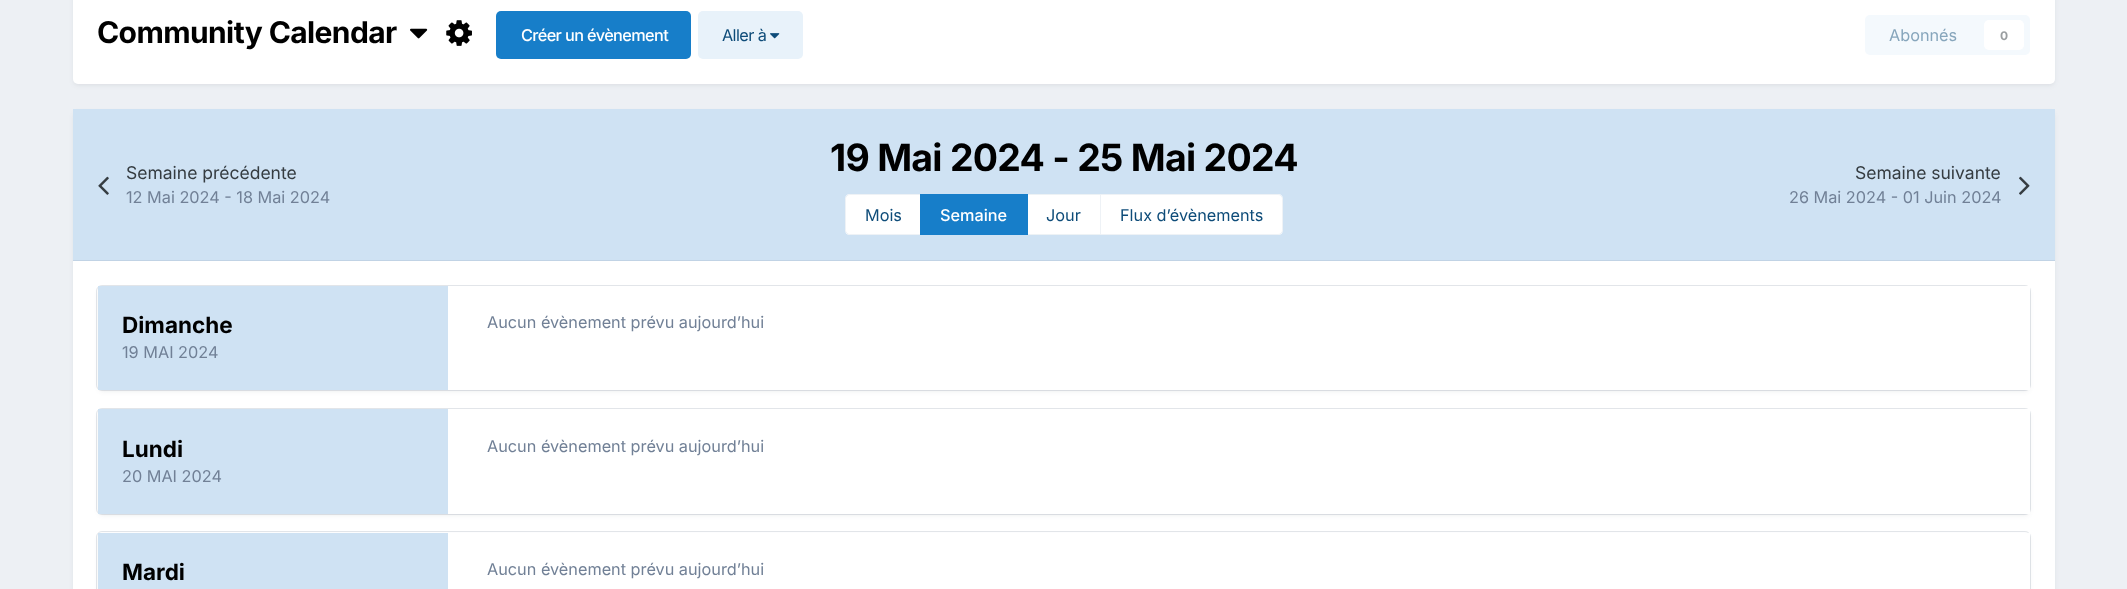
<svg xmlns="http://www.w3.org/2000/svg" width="2127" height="589">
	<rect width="100%" height="100%" fill="#EDF0F4" />
	<rect x="74" y="-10" width="1980" height="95" rx="4" fill="#2D3748" fill-opacity="0.1" filter="blur(2.5px)" />
	<rect x="73" y="-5" width="1982" height="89" rx="5" fill="#FFFFFF" />
	<text x="97" y="43" font-family="Inter" font-size="30" font-weight="700" letter-spacing="-0.6" fill="#000000">Community Calendar</text>
	<image x="410" y="28" width="18" height="11" href="assets/img1.png" />
	<image x="446" y="20" width="26" height="26" href="assets/img2.png" />
	<rect x="496" y="11" width="195" height="48" rx="5" fill="#177EC9" />
	<text x="521" y="41" font-family="Inter" font-size="16.25" font-weight="500" letter-spacing="-0.6" fill="#FFFFFF">Créer un évènement</text>
	<rect x="698" y="11" width="105" height="48" rx="5" fill="#E8F2FA" />
	<text x="722" y="41" font-family="Inter" font-size="16.25" letter-spacing="-0.6" fill="#0E4C79">Aller à</text>
	<image x="770" y="33" width="10" height="6" href="assets/img3.png" />
	<rect x="1865" y="15" width="165" height="40" rx="5" fill="#F4F9FD" />
	<text x="1889" y="41" font-family="Inter" font-size="16.25" fill="#87A6BC">Abonnés</text>
	<rect x="1984" y="20" width="40" height="30" rx="5" fill="#FFFFFF" />
	<text x="2000" y="40" font-family="Inter" font-size="12" font-weight="700" fill="#9A9EA0">0</text>
	<rect x="74" y="113" width="1980" height="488" rx="4" fill="#2D3748" fill-opacity="0.1" filter="blur(2.5px)" />
	<rect x="73" y="261" width="1982" height="328" fill="#FFFFFF" />
	<rect x="73" y="109" width="1982" height="151" fill="#CFE2F3" />
	<rect x="73" y="260" width="1982" height="1" fill="#C1D3E5" />
	<text x="126" y="179" font-family="Inter" font-size="17.5" fill="#353C41">Semaine précédente</text>
	<image x="98" y="176" width="11" height="19" href="assets/img4.png" />
	<text x="126" y="203" font-family="Inter" font-size="16.25" fill="#718096">12 Mai 2024 - 18 Mai 2024</text>
	<text x="830" y="171" font-family="Inter" font-size="37.5" font-weight="700" letter-spacing="-0.75" fill="#000000">19 Mai 2024 - 25 Mai 2024</text>
	<path d="M850 194H921V235H850C847 235 845 233 845 230V199C845 196 847 194 850 194Z" fill="#FFFFFF" />
	<path d="M850 194.5H920.5V234.5H850C847.5 234.5 845.5 232.5 845.5 230V199C845.5 196.5 847.5 194.5 850 194.5Z" fill="none" stroke="#0E4C79" stroke-opacity="0.07" />
	<text x="865" y="221" font-family="Inter" font-size="16.25" fill="#0E4C79">Mois</text>
	<rect x="1028" y="195" width="72" height="39" fill="#FFFFFF" />
	<rect x="1026.5" y="194.5" width="74" height="40" fill="none" stroke="#EDF2F5" />
	<rect x="920" y="194" width="108" height="41" fill="#177EC9" />
	<text x="940" y="221" font-family="Inter" font-size="16.25" font-weight="500" fill="#FFFFFF">Semaine</text>
	<text x="1046" y="221" font-family="Inter" font-size="16.25" fill="#0E4C79">Jour</text>
	<path d="M1100 194H1278C1281 194 1283 196 1283 199V230C1283 233 1281 235 1278 235H1100Z" fill="#FFFFFF" />
	<path d="M1100.5 194.5H1278C1280.5 194.5 1282.5 196.5 1282.5 199V230C1282.5 232.5 1280.5 234.5 1278 234.5H1100.5Z" fill="none" stroke="#0E4C79" stroke-opacity="0.07" />
	<text x="1120" y="221" font-family="Inter" font-size="16.25" fill="#0E4C79">Flux d’évènements</text>
	<text x="1855" y="179" font-family="Inter" font-size="17.5" fill="#353C41">Semaine suivante</text>
	<image x="2019" y="176" width="11" height="19" href="assets/img5.png" />
	<text x="1789" y="203" font-family="Inter" font-size="16.25" fill="#718096">26 Mai 2024 - 01 Juin 2024</text>
	<rect x="99" y="290" width="1930" height="101" rx="4" fill="#2D3748" fill-opacity="0.1" filter="blur(2.5px)" />
	<rect x="96.5" y="285.5" width="1934" height="105" rx="5.5" fill="none" stroke="#718096" stroke-opacity="0.2" />
	<rect x="98" y="286" width="350" height="104" fill="#CFE2F3" />
	<text x="122" y="333" font-family="Inter" font-size="22.5" font-weight="700" fill="#000000">Dimanche</text>
	<text x="122" y="358" font-family="Inter" font-size="16.25" fill="#718096">19 MAI 2024</text>
	<rect x="448" y="286" width="1582" height="104" fill="#FFFFFF" />
	<text x="487" y="328" font-family="Inter" font-size="16.25" fill="#718096">Aucun évènement prévu aujourd’hui</text>
	<rect x="99" y="413" width="1930" height="102" rx="4" fill="#2D3748" fill-opacity="0.1" filter="blur(2.5px)" />
	<rect x="96.5" y="408.5" width="1934" height="106" rx="5.5" fill="none" stroke="#718096" stroke-opacity="0.2" />
	<rect x="98" y="409" width="350" height="105" fill="#CFE2F3" />
	<text x="122" y="457" font-family="Inter" font-size="22.5" font-weight="700" fill="#000000">Lundi</text>
	<text x="122" y="482" font-family="Inter" font-size="16.25" fill="#718096">20 MAI 2024</text>
	<rect x="448" y="409" width="1582" height="105" fill="#FFFFFF" />
	<text x="487" y="452" font-family="Inter" font-size="16.25" fill="#718096">Aucun évènement prévu aujourd’hui</text>
	<rect x="99" y="536" width="1930" height="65" rx="4" fill="#2D3748" fill-opacity="0.1" filter="blur(2.5px)" />
	<rect x="96.5" y="531.5" width="1934" height="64" rx="5.5" fill="none" stroke="#718096" stroke-opacity="0.2" />
	<rect x="98" y="533" width="350" height="56" fill="#CFE2F3" />
	<text x="122" y="580" font-family="Inter" font-size="22.5" font-weight="700" fill="#000000">Mardi</text>
	<rect x="448" y="533" width="1582" height="56" fill="#FFFFFF" />
	<text x="487" y="575" font-family="Inter" font-size="16.25" fill="#718096">Aucun évènement prévu aujourd’hui</text>
</svg>
